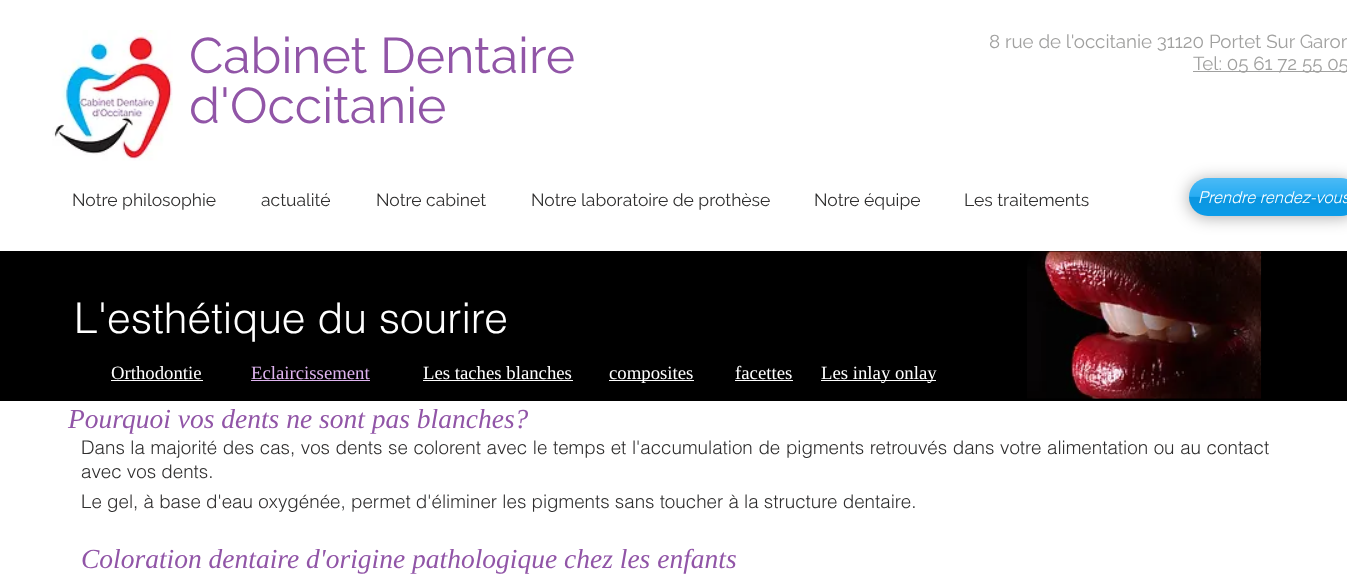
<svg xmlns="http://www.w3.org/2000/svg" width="1347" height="584">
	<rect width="100%" height="100%" fill="#FFFFFF" />
	<image x="52" y="30" width="121" height="131" href="assets/img1.png" />
	<g font-family="Raleway" font-size="50" fill="#9155A7">
		<text x="189" y="73">Cabinet Dentaire</text>
		<text x="189" y="123">d'Occitanie</text>
	</g>
	<text x="989" y="48" font-family="Raleway" font-size="18.75" fill="#A0A09F">8 rue de l'occitanie 31120 Portet Sur Garon</text>
	<rect x="1193" y="71" width="154" height="1" fill="#A0A09F" />
	<text x="1193" y="70" font-family="Raleway" font-size="18.75" fill="#A0A09F">Tel: 05 61 72 55 05</text>
	<g font-family="Raleway" font-size="17.5" fill="#2F2E2E">
		<text x="72" y="206">Notre philosophie</text>
		<text x="261" y="206">actualité</text>
		<text x="376" y="206">Notre cabinet</text>
		<text x="531" y="206">Notre laboratoire de prothèse</text>
		<text x="814" y="206">Notre équipe</text>
		<text x="964" y="206">Les traitements</text>
	</g>
	<rect x="1188" y="179" width="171" height="39" rx="19" fill="#000000" fill-opacity="0.3" filter="blur(8px)" />
	<rect x="1189" y="178" width="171" height="38" rx="19" fill="#0CA2F2" />
	<image x="1189" y="178" width="158" height="38" href="assets/img2.png" />
	<text x="1198" y="203" font-family="helvetica" font-size="16.25" font-weight="300" font-style="italic" fill="#FFFFFF">Prendre rendez-vous</text>
	<rect x="0" y="251" width="1347" height="150" fill="#000000" />
	<text x="74" y="333" font-family="helvetica" font-size="42.5" font-weight="300" fill="#FFFFFF">L'esthétique du sourire</text>
	<text x="111" y="379" font-family="Liberation Serif" font-size="18.75" fill="#FFFFFF">Orthodontie</text>
	<rect x="111" y="380" width="92" height="1" fill="#FFFFFF" />
	<text x="251" y="379" font-family="Liberation Serif" font-size="18.75" fill="#DFB4EF">Eclaircissement</text>
	<rect x="251" y="380" width="119" height="1" fill="#DFB4EF" />
	<text x="423" y="379" font-family="Liberation Serif" font-size="18.75" fill="#FFFFFF">Les taches blanches</text>
	<rect x="423" y="380" width="150" height="1" fill="#FFFFFF" />
	<rect x="609" y="380" width="85" height="1" fill="#FFFFFF" />
	<g font-family="Liberation Serif" font-size="18.75" fill="#FFFFFF">
		<text x="609" y="379">composites</text>
		<text x="735" y="379">facettes</text>
	</g>
	<rect x="735" y="380" width="58" height="1" fill="#FFFFFF" />
	<rect x="821" y="380" width="115" height="1" fill="#FFFFFF" />
	<text x="821" y="379" font-family="Liberation Serif" font-size="18.75" fill="#FFFFFF">Les inlay onlay</text>
	<image x="1027" y="251" width="235" height="148" href="assets/img3.png" />
	<text x="68" y="428" font-family="Liberation Serif" font-size="27.5" font-style="italic" fill="#9155A7">Pourquoi vos dents ne sont pas blanches?</text>
	<g font-family="helvetica" font-size="18.75" font-weight="300" fill="#2F2E2E">
		<text x="81" y="454" word-spacing="0.4">Dans la majorité des cas, vos dents se colorent avec le temps et l'accumulation de pigments retrouvés dans votre alimentation ou au contact</text>
		<text x="81" y="478">avec vos dents.</text>
		<text x="81" y="508">Le gel, à base d'eau oxygénée, permet d'éliminer les pigments sans toucher à la structure dentaire.</text>
	</g>
	<text x="81" y="568" font-family="Liberation Serif" font-size="27.5" font-style="italic" fill="#9155A7">Coloration dentaire d'origine pathologique chez les enfants</text>
</svg>
